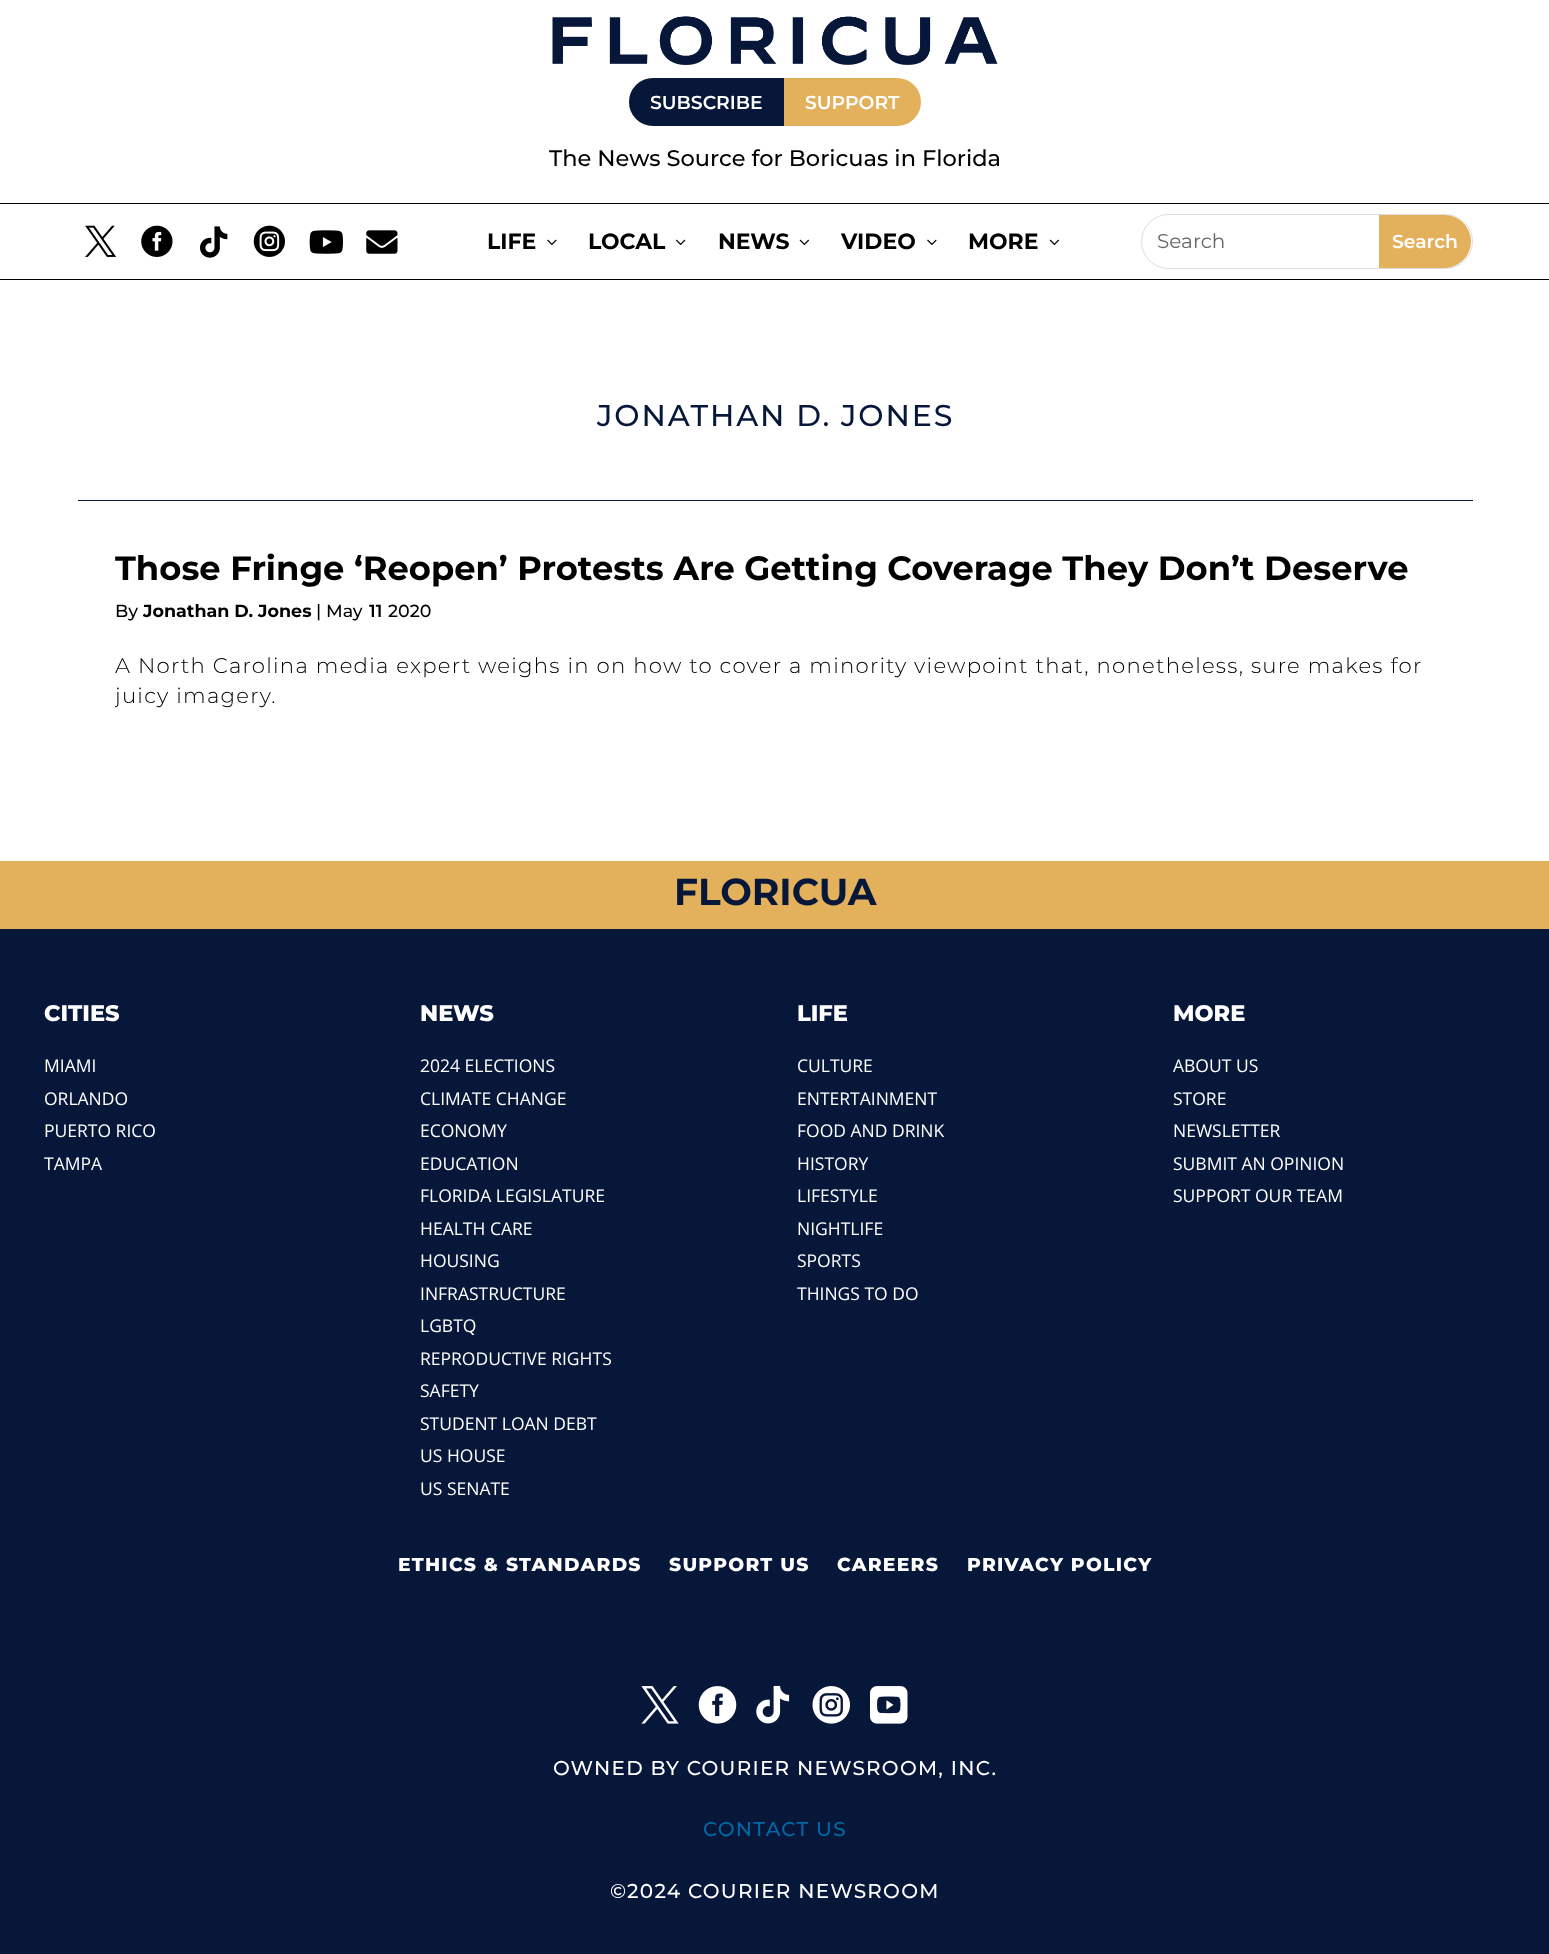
<svg xmlns="http://www.w3.org/2000/svg" width="1549" height="1954">
	<defs>
		<clipPath id="clip1"><rect x="115" y="653" width="1339" height="58" /></clipPath>
	</defs>
	<rect width="100%" height="100%" fill="#FFFFFF" />
	<image x="552" y="16" width="446" height="49" href="assets/img1.png" />
	<path d="M653 79.5H782.5V124.5H653C640.5 124.5 630.5 114.5 630.5 102C630.5 89.5 640.5 79.5 653 79.5Z" fill="#071739" stroke="#071739" stroke-width="3" />
	<text x="650" y="109" font-family="Montserrat" font-size="18.75" font-weight="600" fill="#FFFFFF">SUBSCRIBE</text>
	<path d="M785.5 79.5H897C909.5 79.5 919.5 89.5 919.5 102C919.5 114.5 909.5 124.5 897 124.5H785.5Z" fill="#E3B15B" stroke="#E3B15B" stroke-width="3" />
	<text x="805" y="109" font-family="Montserrat" font-size="18.75" font-weight="600" fill="#FFFFFF">SUPPORT</text>
	<text x="549" y="166" font-family="Montserrat" font-size="22.5" font-weight="500" fill="#000000">The News Source for Boricuas in Florida</text>
	<rect x="0" y="203" width="1549" height="1" fill="#000000" />
	<rect x="0" y="279" width="1549" height="1" fill="#000000" />
	<image x="85" y="225" width="31" height="32" href="assets/img2.png" />
	<image x="141" y="225" width="32" height="32" href="assets/img3.png" />
	<image x="200" y="226" width="28" height="32" href="assets/img4.png" />
	<image x="253" y="225" width="32" height="32" href="assets/img5.png" />
	<image x="309" y="230" width="34" height="24" href="assets/img6.png" />
	<image x="366" y="230" width="32" height="24" href="assets/img7.png" />
	<text x="487" y="249" font-family="Montserrat" font-size="22" font-weight="700" fill="#000000">LIFE</text>
	<image x="547" y="239" width="10" height="6" href="assets/img8.png" />
	<text x="588" y="249" font-family="Montserrat" font-size="22" font-weight="700" fill="#000000">LOCAL</text>
	<image x="676" y="239" width="10" height="6" href="assets/img9.png" />
	<text x="718" y="249" font-family="Montserrat" font-size="22" font-weight="700" fill="#000000">NEWS</text>
	<image x="799" y="239" width="10" height="6" href="assets/img10.png" />
	<text x="841" y="249" font-family="Montserrat" font-size="22" font-weight="700" fill="#000000">VIDEO</text>
	<image x="927" y="239" width="10" height="6" href="assets/img8.png" />
	<text x="968" y="249" font-family="Montserrat" font-size="22" font-weight="700" fill="#000000">MORE</text>
	<image x="1049" y="239" width="10" height="6" href="assets/img10.png" />
	<rect x="1141.5" y="214.5" width="331" height="54" rx="27" fill="none" stroke="#DDDDDD" />
	<text x="1157" y="248" font-family="Montserrat" font-size="20" fill="#666666">Search</text>
	<path d="M1379 215H1444.5C1459 215 1471 227 1471 241.5C1471 256 1459 268 1444.5 268H1379Z" fill="#E3B15B" />
	<text x="1392" y="248" font-family="Montserrat" font-size="18.75" font-weight="600" fill="#FFFFFF">Search</text>
	<rect x="78" y="500" width="1395" height="1" fill="#07173A" />
	<text x="597" y="426" font-family="Montserrat" font-size="30" font-weight="500" letter-spacing="1.9" fill="#07173A">JONATHAN D. JONES</text>
	<text x="115" y="580" font-family="Montserrat" font-size="33.75" font-weight="700" fill="#000000">Those Fringe ‘Reopen’ Protests Are Getting Coverage They Don’t Deserve</text>
	<text x="115" y="617" font-family="Montserrat" font-size="17.5" font-weight="500" fill="#000000">By</text>
	<text x="143" y="617" font-family="Montserrat" font-size="17.5" font-weight="700" fill="#000000">Jonathan D. Jones</text>
	<text x="316" y="617" font-family="Montserrat" font-size="17.5" font-weight="500" fill="#000000">| May</text>
	<text x="369" y="617" font-family="Montserrat" font-size="17.5" font-weight="600" fill="#000000">11</text>
	<text x="388" y="617" font-family="Montserrat" font-size="17.5" font-weight="500" fill="#000000">2020</text>
	<text x="115" y="673" font-family="Montserrat" font-size="21.25" font-weight="300" letter-spacing="1.25" fill="#000000">A North Carolina media expert weighs in on how to cover a minority viewpoint that, nonetheless, sure makes for</text>
	<g clip-path="url(#clip1)">
		<text x="115" y="703" font-family="Montserrat" font-size="21.25" font-weight="300" letter-spacing="1.25" fill="#000000">juicy imagery.</text>
	</g>
	<rect x="0" y="861" width="1549" height="68" fill="#E3B15B" />
	<text x="674" y="905" font-family="Montserrat" font-size="37.5" font-weight="700" fill="#07173A">FLORICUA</text>
	<rect x="0" y="929" width="1549" height="1025" fill="#07173A" />
	<text x="44" y="1021" font-family="Montserrat" font-size="22.5" font-weight="800" fill="#FFFFFF">CITIES</text>
	<g font-family="Open Sans" font-size="17.5" fill="#FFFFFF">
		<text x="44" y="1072">MIAMI</text>
		<text x="44" y="1105">ORLANDO</text>
		<text x="44" y="1137">PUERTO RICO</text>
		<text x="44" y="1170">TAMPA</text>
	</g>
	<text x="420" y="1021" font-family="Montserrat" font-size="22.5" font-weight="800" fill="#FFFFFF">NEWS</text>
	<g font-family="Open Sans" font-size="17.5" fill="#FFFFFF">
		<text x="420" y="1072">2024 ELECTIONS</text>
		<text x="420" y="1105">CLIMATE CHANGE</text>
		<text x="420" y="1137">ECONOMY</text>
		<text x="420" y="1170">EDUCATION</text>
		<text x="420" y="1202">FLORIDA LEGISLATURE</text>
		<text x="420" y="1235">HEALTH CARE</text>
		<text x="420" y="1267">HOUSING</text>
		<text x="420" y="1300">INFRASTRUCTURE</text>
		<text x="420" y="1332">LGBTQ</text>
		<text x="420" y="1365">REPRODUCTIVE RIGHTS</text>
		<text x="420" y="1397">SAFETY</text>
		<text x="420" y="1430">STUDENT LOAN DEBT</text>
		<text x="420" y="1462">US HOUSE</text>
		<text x="420" y="1495">US SENATE</text>
	</g>
	<text x="797" y="1021" font-family="Montserrat" font-size="22.5" font-weight="800" fill="#FFFFFF">LIFE</text>
	<g font-family="Open Sans" font-size="17.5" fill="#FFFFFF">
		<text x="797" y="1072">CULTURE</text>
		<text x="797" y="1105">ENTERTAINMENT</text>
		<text x="797" y="1137">FOOD AND DRINK</text>
		<text x="797" y="1170">HISTORY</text>
		<text x="797" y="1202">LIFESTYLE</text>
		<text x="797" y="1235">NIGHTLIFE</text>
		<text x="797" y="1267">SPORTS</text>
		<text x="797" y="1300">THINGS TO DO</text>
	</g>
	<text x="1173" y="1021" font-family="Montserrat" font-size="22.5" font-weight="800" fill="#FFFFFF">MORE</text>
	<g font-family="Open Sans" font-size="17.5" fill="#FFFFFF">
		<text x="1173" y="1072">ABOUT US</text>
		<text x="1173" y="1105">STORE</text>
		<text x="1173" y="1137">NEWSLETTER</text>
		<text x="1173" y="1170">SUBMIT AN OPINION</text>
		<text x="1173" y="1202">SUPPORT OUR TEAM</text>
	</g>
	<g font-family="Montserrat" font-size="18.75" font-weight="800" letter-spacing="1.25" fill="#FFFFFF">
		<text x="398" y="1571">ETHICS &amp; STANDARDS</text>
		<text x="669" y="1571">SUPPORT US</text>
		<text x="837" y="1571">CAREERS</text>
		<text x="967" y="1571">PRIVACY POLICY</text>
	</g>
	<image x="641" y="1686" width="38" height="38" href="assets/img11.png" />
	<image x="698" y="1686" width="39" height="38" href="assets/img12.png" />
	<image x="756" y="1685" width="34" height="39" href="assets/img13.png" />
	<image x="812" y="1686" width="38" height="38" href="assets/img14.png" />
	<image x="870" y="1686" width="38" height="38" href="assets/img15.png" />
	<text x="553" y="1775" font-family="Montserrat" font-size="20" font-weight="500" letter-spacing="1.25" fill="#FFFFFF">OWNED BY COURIER NEWSROOM, INC.</text>
	<text x="703" y="1836" font-family="Montserrat" font-size="20" font-weight="500" letter-spacing="1.25" fill="#0068A5">CONTACT US</text>
	<text x="610" y="1898" font-family="Montserrat" font-size="20" font-weight="500" letter-spacing="1.25" fill="#FFFFFF">©2024 COURIER NEWSROOM</text>
</svg>
